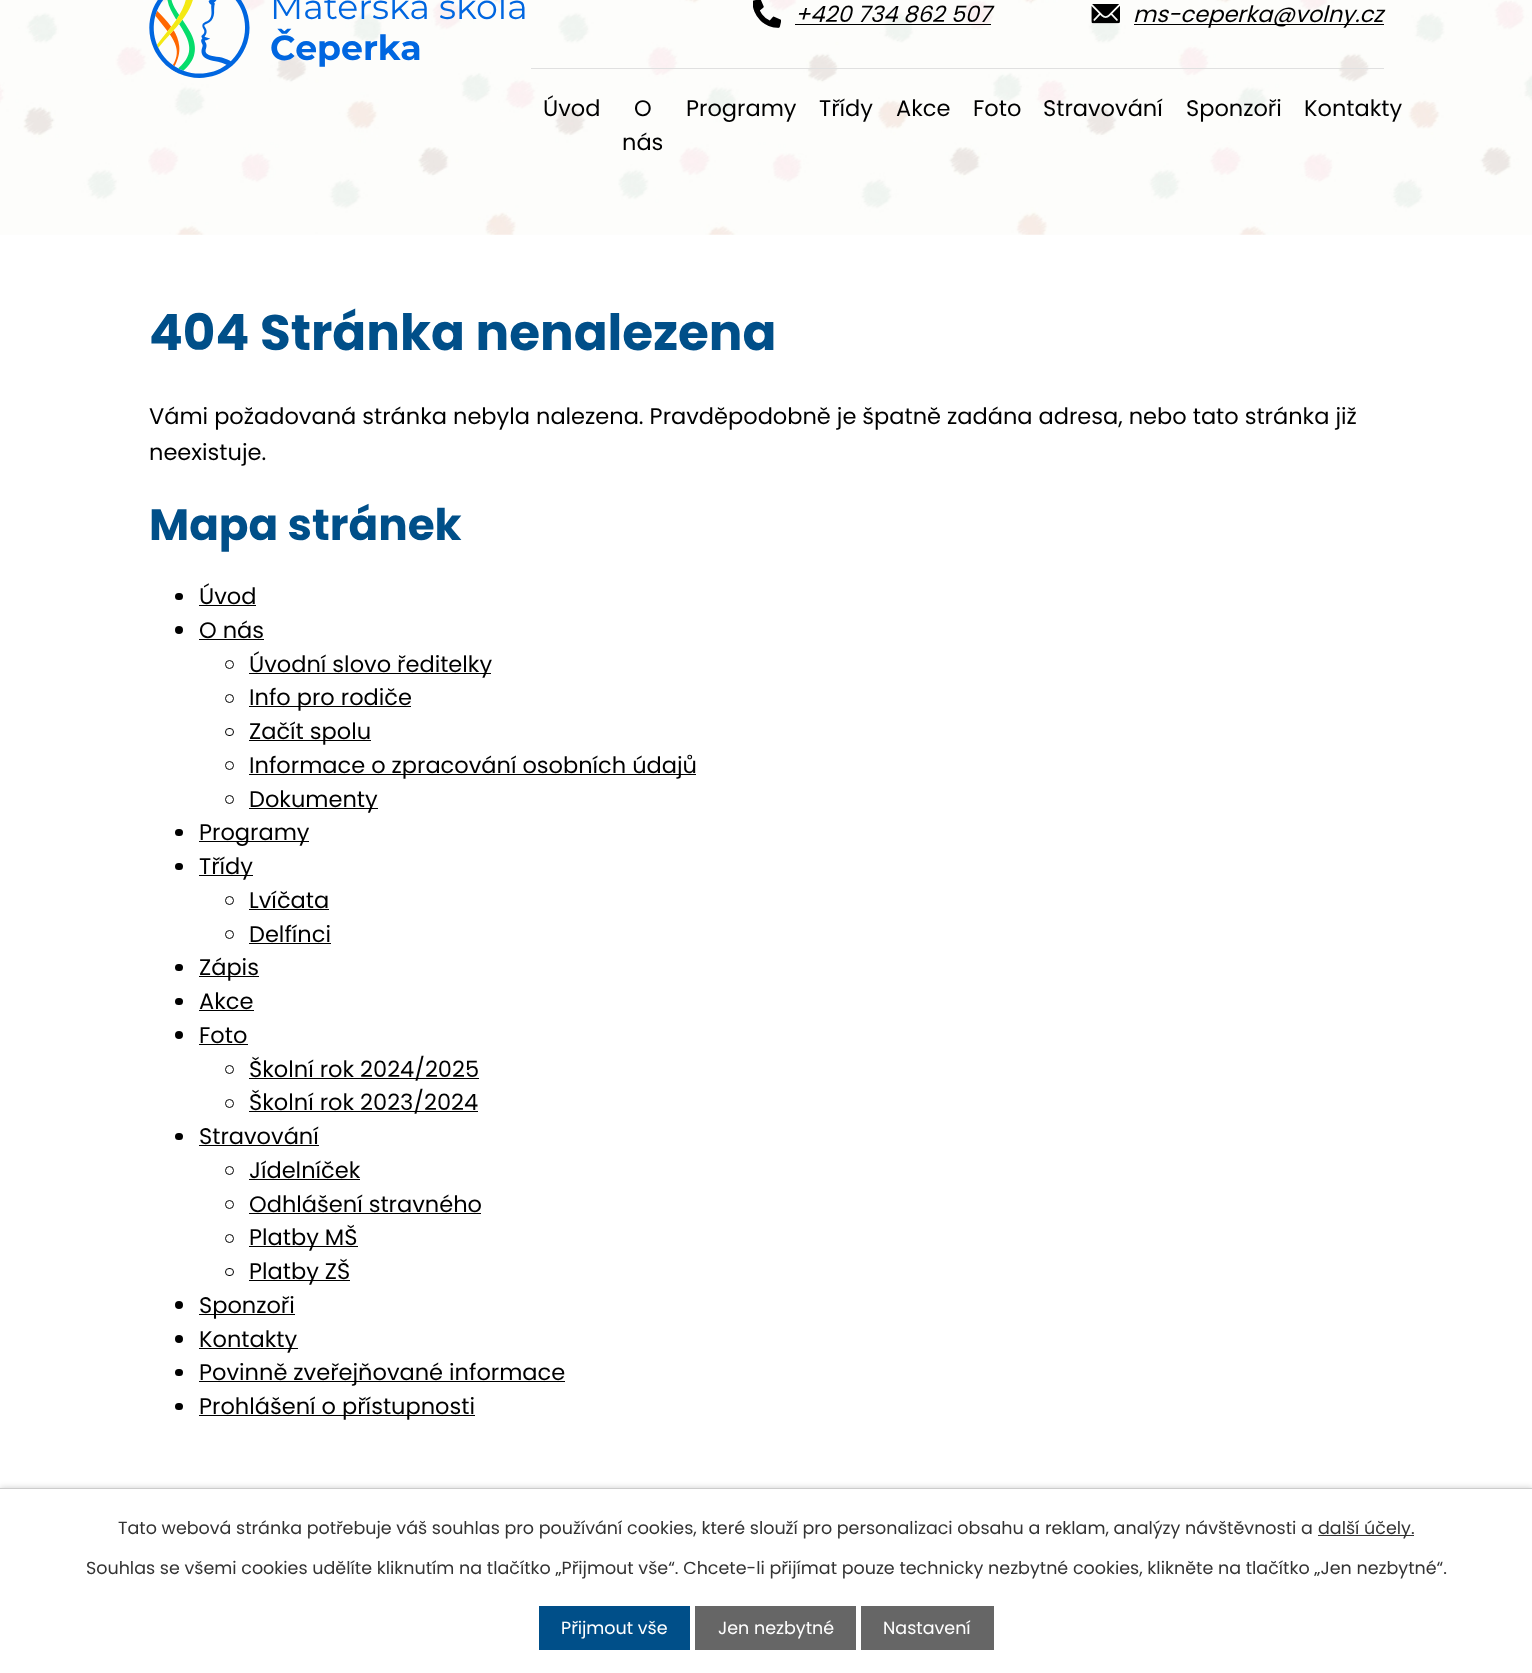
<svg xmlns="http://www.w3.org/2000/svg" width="1532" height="1673">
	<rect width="100%" height="100%" fill="#FFFFFF" />
	<image x="0" y="0" width="1532" height="235" href="assets/img1.png" />
	<image x="149" y="0" width="101" height="78" href="assets/img2.png" />
	<text x="270" y="19" font-family="Montserrat" font-size="34.75" fill="#0066E0">Mateřská škola</text>
	<text x="270" y="60" font-family="Montserrat" font-size="34.75" font-weight="700" fill="#0066E0">Čeperka</text>
	<image x="753" y="0" width="28" height="28" href="assets/img3.png" />
	<text x="795" y="22" font-family="Poppins" font-size="22.5" font-style="italic" fill="#000000">+420 734 862 507</text>
	<rect x="795" y="24" width="196" height="1" fill="#000000" />
	<image x="1091" y="4" width="29" height="20" href="assets/img4.png" />
	<rect x="1134" y="24" width="250" height="1" fill="#000000" />
	<text x="1133" y="22" font-family="Poppins" font-size="22.5" font-style="italic" fill="#000000">ms-ceperka@volny.cz</text>
	<rect x="531" y="68" width="853" height="1" fill="#E0E0E0" />
	<g font-family="Poppins" font-size="22.5" fill="#000000">
		<text x="543" y="116">Úvod</text>
		<text x="634" y="116">O</text>
		<text x="622" y="150">nás</text>
		<text x="686" y="116">Programy</text>
		<text x="819" y="116">Třídy</text>
		<text x="896" y="116">Akce</text>
		<text x="973" y="116">Foto</text>
		<text x="1043" y="116">Stravování</text>
		<text x="1186" y="116">Sponzoři</text>
		<text x="1304" y="116">Kontakty</text>
	</g>
	<text x="149" y="350" font-family="Poppins" font-size="50" font-weight="700" fill="#004F89">404 Stránka nenalezena</text>
	<g font-family="Poppins" font-size="22.5" fill="#000000">
		<text x="149" y="424">Vámi požadovaná stránka nebyla nalezena. Pravděpodobně je špatně zadána adresa, nebo tato stránka již</text>
		<text x="149" y="460">neexistuje.</text>
	</g>
	<text x="149" y="540" font-family="Poppins" font-size="43.75" font-weight="700" fill="#004F89">Mapa stránek</text>
	<rect x="175" y="593" width="8" height="7" rx="3.5" fill="#000000" />
	<text x="199" y="604" font-family="Poppins" font-size="22.5" fill="#000000">Úvod</text>
	<rect x="199" y="605" width="57" height="1" fill="#000000" />
	<circle cx="179" cy="630" r="4" fill="#000000" />
	<text x="199" y="638" font-family="Poppins" font-size="22.5" fill="#000000">O nás</text>
	<rect x="199" y="639" width="65" height="1" fill="#000000" />
	<circle cx="229.5" cy="664.5" r="4" fill="none" stroke="#000000" />
	<rect x="249" y="673" width="242" height="1" fill="#000000" />
	<text x="249" y="672" font-family="Poppins" font-size="22.5" fill="#000000">Úvodní slovo ředitelky</text>
	<circle cx="229.5" cy="698.5" r="4" fill="none" stroke="#000000" />
	<rect x="249" y="706" width="162" height="1" fill="#000000" />
	<text x="249" y="705" font-family="Poppins" font-size="22.5" fill="#000000">Info pro rodiče</text>
	<rect x="225.5" y="728.5" width="8" height="7" rx="3.5" fill="none" stroke="#000000" />
	<rect x="249" y="740" width="122" height="1" fill="#000000" />
	<text x="249" y="739" font-family="Poppins" font-size="22.5" fill="#000000">Začít spolu</text>
	<circle cx="229.5" cy="765.5" r="4" fill="none" stroke="#000000" />
	<rect x="249" y="774" width="447" height="1" fill="#000000" />
	<text x="249" y="773" font-family="Poppins" font-size="22.5" fill="#000000">Informace o zpracování osobních údajů</text>
	<circle cx="229.5" cy="799.5" r="4" fill="none" stroke="#000000" />
	<rect x="249" y="808" width="129" height="1" fill="#000000" />
	<text x="249" y="807" font-family="Poppins" font-size="22.5" fill="#000000">Dokumenty</text>
	<rect x="175" y="829" width="8" height="7" rx="3.5" fill="#000000" />
	<rect x="199" y="841" width="110" height="1" fill="#000000" />
	<text x="199" y="840" font-family="Poppins" font-size="22.5" fill="#000000">Programy</text>
	<rect x="175" y="863" width="8" height="7" rx="3.5" fill="#000000" />
	<rect x="199" y="875" width="54" height="1" fill="#000000" />
	<text x="199" y="874" font-family="Poppins" font-size="22.5" fill="#000000">Třídy</text>
	<circle cx="229.5" cy="900.5" r="4" fill="none" stroke="#000000" />
	<text x="249" y="908" font-family="Poppins" font-size="22.5" fill="#000000">Lvíčata</text>
	<rect x="249" y="909" width="80" height="1" fill="#000000" />
	<circle cx="229.5" cy="934.5" r="4" fill="none" stroke="#000000" />
	<text x="249" y="942" font-family="Poppins" font-size="22.5" fill="#000000">Delfínci</text>
	<rect x="249" y="943" width="82" height="1" fill="#000000" />
	<rect x="175" y="964" width="8" height="7" rx="3.5" fill="#000000" />
	<rect x="199" y="976" width="60" height="1" fill="#000000" />
	<text x="199" y="975" font-family="Poppins" font-size="22.5" fill="#000000">Zápis</text>
	<rect x="175" y="998" width="8" height="7" rx="3.5" fill="#000000" />
	<text x="199" y="1009" font-family="Poppins" font-size="22.5" fill="#000000">Akce</text>
	<rect x="199" y="1010" width="55" height="1" fill="#000000" />
	<circle cx="179" cy="1035" r="4" fill="#000000" />
	<text x="199" y="1043" font-family="Poppins" font-size="22.5" fill="#000000">Foto</text>
	<rect x="199" y="1044" width="49" height="1" fill="#000000" />
	<circle cx="229.5" cy="1069.5" r="4" fill="none" stroke="#000000" />
	<rect x="249" y="1078" width="230" height="1" fill="#000000" />
	<text x="249" y="1077" font-family="Poppins" font-size="22.5" fill="#000000">Školní rok 2024/2025</text>
	<circle cx="229.5" cy="1103.5" r="4" fill="none" stroke="#000000" />
	<rect x="249" y="1111" width="229" height="1" fill="#000000" />
	<text x="249" y="1110" font-family="Poppins" font-size="22.5" fill="#000000">Školní rok 2023/2024</text>
	<rect x="175" y="1133" width="8" height="7" rx="3.5" fill="#000000" />
	<text x="199" y="1144" font-family="Poppins" font-size="22.5" fill="#000000">Stravování</text>
	<rect x="199" y="1145" width="120" height="1" fill="#000000" />
	<circle cx="229.5" cy="1170.5" r="4" fill="none" stroke="#000000" />
	<text x="249" y="1178" font-family="Poppins" font-size="22.5" fill="#000000">Jídelníček</text>
	<rect x="249" y="1179" width="111" height="1" fill="#000000" />
	<circle cx="229.5" cy="1204.5" r="4" fill="none" stroke="#000000" />
	<text x="249" y="1212" font-family="Poppins" font-size="22.5" fill="#000000">Odhlášení stravného</text>
	<rect x="249" y="1213" width="232" height="1" fill="#000000" />
	<circle cx="229.5" cy="1238.5" r="4" fill="none" stroke="#000000" />
	<rect x="249" y="1246" width="109" height="1" fill="#000000" />
	<text x="249" y="1245" font-family="Poppins" font-size="22.5" fill="#000000">Platby MŠ</text>
	<rect x="225.5" y="1268.5" width="8" height="7" rx="3.5" fill="none" stroke="#000000" />
	<rect x="249" y="1280" width="101" height="1" fill="#000000" />
	<text x="249" y="1279" font-family="Poppins" font-size="22.5" fill="#000000">Platby ZŠ</text>
	<circle cx="179" cy="1305" r="4" fill="#000000" />
	<rect x="199" y="1314" width="96" height="1" fill="#000000" />
	<text x="199" y="1313" font-family="Poppins" font-size="22.5" fill="#000000">Sponzoři</text>
	<circle cx="179" cy="1339" r="4" fill="#000000" />
	<rect x="199" y="1348" width="99" height="1" fill="#000000" />
	<text x="199" y="1347" font-family="Poppins" font-size="22.5" fill="#000000">Kontakty</text>
	<rect x="175" y="1369" width="8" height="7" rx="3.5" fill="#000000" />
	<rect x="199" y="1381" width="366" height="1" fill="#000000" />
	<text x="199" y="1380" font-family="Poppins" font-size="22.5" fill="#000000">Povinně zveřejňované informace</text>
	<rect x="175" y="1403" width="8" height="7" rx="3.5" fill="#000000" />
	<rect x="199" y="1415" width="276" height="1" fill="#000000" />
	<text x="199" y="1414" font-family="Poppins" font-size="22.5" fill="#000000">Prohlášení o přístupnosti</text>
	<rect x="0" y="1488" width="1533" height="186" fill="#000000" fill-opacity="0.2" filter="blur(3px)" />
	<rect x="0" y="1489" width="1532" height="184" fill="#FFFFFF" />
	<rect x="0" y="1488" width="1532" height="1" fill="#CCCCCC" />
	<text x="118" y="1534" font-family="Poppins" font-size="17.5" fill="#333333">Tato webová stránka potřebuje váš souhlas pro používání cookies, které slouží pro personalizaci obsahu a reklam, analýzy návštěvnosti a</text>
	<rect x="1318" y="1535" width="96" height="1" fill="#333333" />
	<g font-family="Poppins" font-size="17.5" fill="#333333">
		<text x="1318" y="1534">další účely.</text>
		<text x="86" y="1574">Souhlas se všemi cookies udělíte kliknutím na tlačítko „Přijmout vše“. Chcete-li přijímat pouze technicky nezbytné cookies, klikněte na tlačítko „Jen nezbytné“.</text>
	</g>
	<rect x="539" y="1606" width="151" height="44" fill="#004F89" />
	<text x="561" y="1634" font-family="Poppins" font-size="17.5" fill="#FFFFFF">Přijmout vše</text>
	<rect x="695" y="1606" width="161" height="44" fill="#666666" />
	<text x="718" y="1634" font-family="Poppins" font-size="17.5" fill="#FFFFFF">Jen nezbytné</text>
	<rect x="861" y="1606" width="133" height="44" fill="#666666" />
	<text x="883" y="1634" font-family="Poppins" font-size="17.5" fill="#FFFFFF">Nastavení</text>
</svg>
